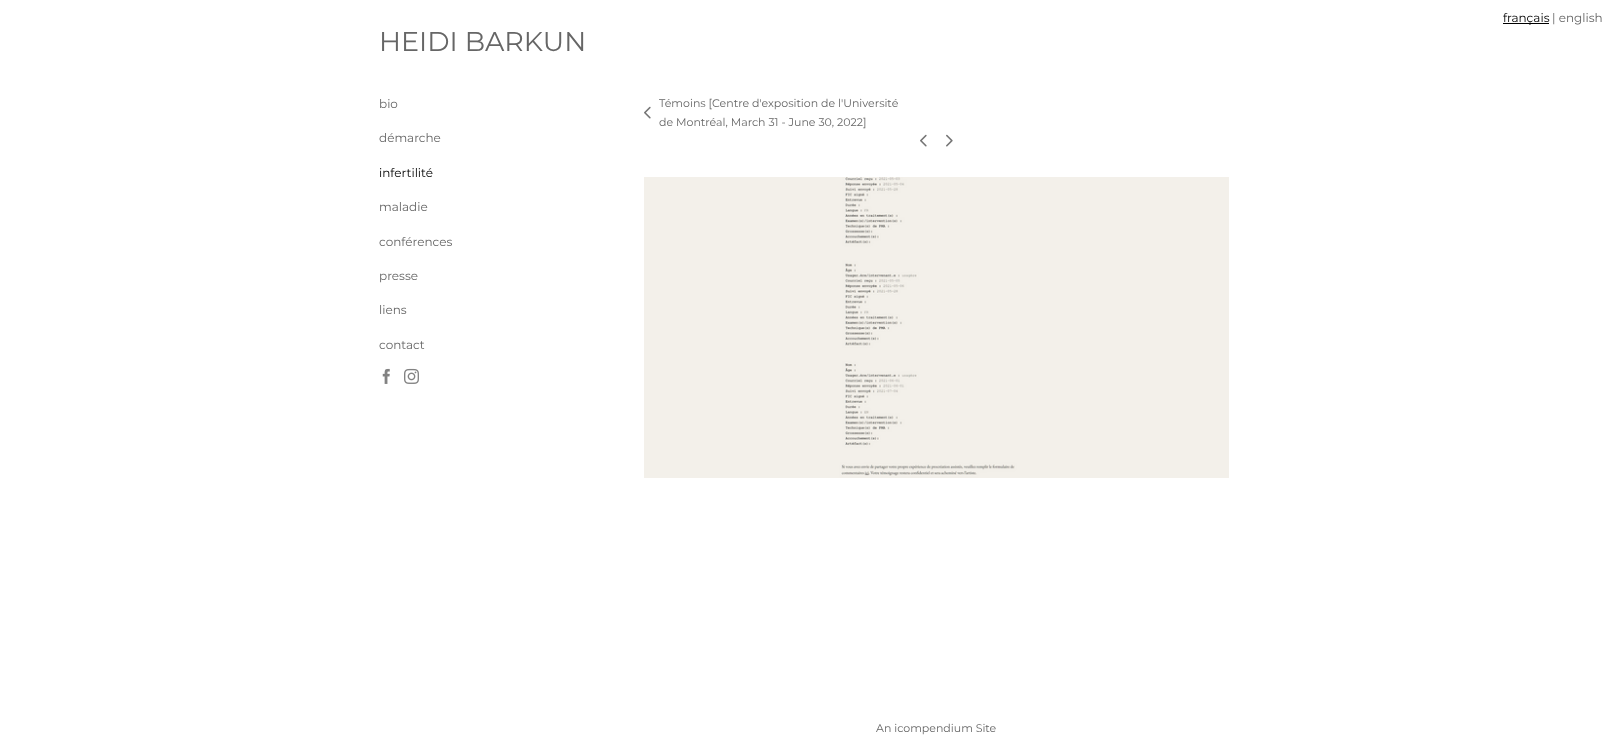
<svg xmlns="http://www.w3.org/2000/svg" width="1623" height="754">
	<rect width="100%" height="100%" fill="#FFFFFF" />
	<rect x="1503" y="23" width="46" height="1" fill="#000000" />
	<text x="1503" y="22" font-family="Montserrat" font-size="12" font-weight="100" fill="#000000">français</text>
	<text x="1552" y="22" font-family="Montserrat" font-size="12" font-weight="100" fill="#666666">| english</text>
	<text x="379" y="51" font-family="Montserrat" font-size="27" font-weight="100" fill="#666666">HEIDI BARKUN</text>
	<g font-family="Montserrat" font-size="12" font-weight="100" fill="#666666">
		<text x="379" y="108">bio</text>
		<text x="379" y="142">démarche</text>
	</g>
	<text x="379" y="177" font-family="Montserrat" font-size="12" font-weight="100" fill="#000000">infertilité</text>
	<g font-family="Montserrat" font-size="12" font-weight="100" fill="#666666">
		<text x="379" y="211">maladie</text>
		<text x="379" y="246">conférences</text>
		<text x="379" y="280">presse</text>
		<text x="379" y="314">liens</text>
		<text x="379" y="349">contact</text>
	</g>
	<image x="382" y="368" width="8" height="16" href="assets/img1.png" />
	<image x="404" y="368" width="15" height="16" href="assets/img2.png" />
	<image x="644" y="106" width="7" height="13" href="assets/img3.png" />
	<g font-family="Montserrat" font-size="11" font-weight="100" fill="#666666">
		<text x="659" y="107">Témoins [Centre d'exposition de l'Université</text>
		<text x="659" y="126">de Montréal, March 31 - June 30, 2022]</text>
	</g>
	<image x="920" y="134" width="7" height="13" href="assets/img3.png" />
	<image x="946" y="134" width="7" height="13" href="assets/img4.png" />
	<image x="644" y="177" width="585" height="301" href="assets/img5.png" />
	<text x="876" y="732" font-family="Montserrat" font-size="11" font-weight="100" fill="#666666">An icompendium Site</text>
</svg>
